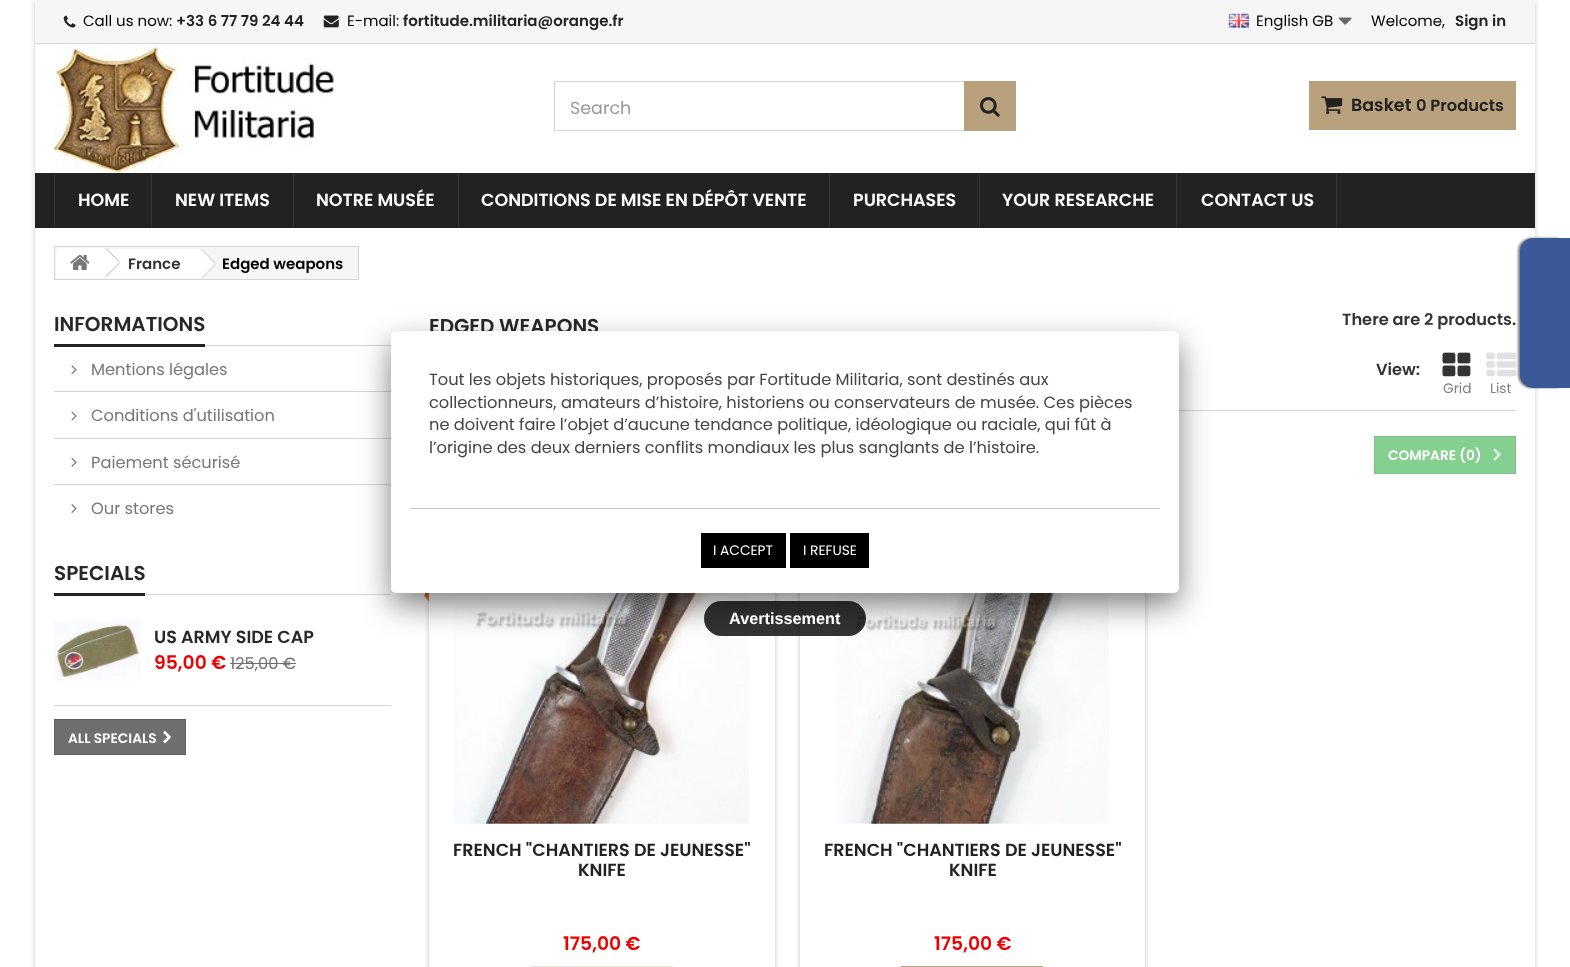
<svg xmlns="http://www.w3.org/2000/svg" width="1570" height="967">
	<defs>
		<clipPath id="clip1"><path d="M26 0H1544V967H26ZM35 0H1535V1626H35Z" clip-rule="evenodd" /></clipPath>
		<clipPath id="clip2"><path d="M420 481H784V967H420ZM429 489H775V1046H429Z" clip-rule="evenodd" /></clipPath>
		<clipPath id="clip3"><rect x="425" y="494" width="109" height="110" /></clipPath>
		<clipPath id="clip4"><path d="M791 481H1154V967H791ZM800 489H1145V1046H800Z" clip-rule="evenodd" /></clipPath>
	</defs>
	<rect width="100%" height="100%" fill="#FFFFFF" />
	<g clip-path="url(#clip1)">
		<rect x="35" y="0" width="1500" height="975" fill="#000000" fill-opacity="0.2" filter="blur(2.5px)" />
	</g>
	<rect x="35" y="0" width="1500" height="43" fill="#F6F6F6" />
	<rect x="35" y="43" width="1500" height="1" fill="#D6D4D4" />
	<image x="63" y="15" width="13" height="13" href="assets/img1.png" />
	<text x="83" y="26" font-family="Poppins" font-size="15" fill="#000000">Call us now:</text>
	<text x="176" y="26" font-family="Poppins" font-size="15" font-weight="600" fill="#222222">+33 6 77 79 24 44</text>
	<image x="323" y="15" width="16" height="13" href="assets/img2.png" />
	<text x="347" y="26" font-family="Poppins" font-size="15" fill="#000000">E-mail:</text>
	<text x="403" y="26" font-family="Poppins" font-size="15" font-weight="600" fill="#222222">fortitude.militaria@orange.fr</text>
	<image x="1228" y="13" width="21" height="15" href="assets/img3.png" />
	<text x="1256" y="26" font-family="Poppins" font-size="15" fill="#000000">English GB</text>
	<image x="1338" y="17" width="14" height="8" href="assets/img4.png" />
	<text x="1371" y="26" font-family="Poppins" font-size="15" fill="#000000">Welcome,</text>
	<text x="1455" y="26" font-family="Poppins" font-size="15" font-weight="600" fill="#222222">Sign in</text>
	<image x="53" y="47" width="281" height="126" href="assets/img5.png" />
	<rect x="554.5" y="81.5" width="461" height="49" fill="none" stroke="#D6D4D4" />
	<text x="570" y="114" font-family="Poppins" font-size="17.5" fill="#999999">Search</text>
	<rect x="964" y="81" width="52" height="50" fill="#BAA17D" />
	<image x="980" y="97" width="20" height="20" href="assets/img6.png" />
	<rect x="1309" y="81" width="207" height="49" fill="#BAA17D" />
	<image x="1321" y="96" width="22" height="19" href="assets/img7.png" />
	<text x="1351" y="111" font-family="Poppins" font-size="17.5" font-weight="600" fill="#222222">Basket</text>
	<text x="1416" y="111" font-family="Poppins" font-size="16.25" font-weight="600" fill="#222222">0 Products</text>
	<rect x="35" y="173" width="1500" height="55" fill="#222222" />
	<rect x="151" y="173" width="1" height="55" fill="#363636" />
	<rect x="54" y="173" width="1" height="55" fill="#363636" />
	<text x="78" y="206" font-family="Poppins" font-size="17.5" font-weight="600" fill="#FFFFFF">HOME</text>
	<rect x="293" y="173" width="1" height="55" fill="#363636" />
	<text x="175" y="206" font-family="Poppins" font-size="17.5" font-weight="600" fill="#FFFFFF">NEW ITEMS</text>
	<rect x="458" y="173" width="1" height="55" fill="#363636" />
	<text x="316" y="206" font-family="Poppins" font-size="17.5" font-weight="600" fill="#FFFFFF">NOTRE MUSÉE</text>
	<rect x="829" y="173" width="1" height="55" fill="#363636" />
	<text x="481" y="206" font-family="Poppins" font-size="17.5" font-weight="600" fill="#FFFFFF">CONDITIONS DE MISE EN DÉPÔT VENTE</text>
	<rect x="979" y="173" width="1" height="55" fill="#363636" />
	<text x="853" y="206" font-family="Poppins" font-size="17.5" font-weight="600" fill="#FFFFFF">PURCHASES</text>
	<rect x="1176" y="173" width="1" height="55" fill="#363636" />
	<text x="1002" y="206" font-family="Poppins" font-size="17.5" font-weight="600" fill="#FFFFFF">YOUR RESEARCHE</text>
	<rect x="1336" y="173" width="1" height="55" fill="#363636" />
	<text x="1201" y="206" font-family="Poppins" font-size="17.5" font-weight="600" fill="#FFFFFF">CONTACT US</text>
	<rect x="54.5" y="246.5" width="304" height="33" fill="#F6F6F6" stroke="#D6D4D4" />
	<path d="M60 248H104V279H60C58 279 56 277 56 275V252C56 250 58 248 60 248Z" fill="#FFFFFF" />
	<image x="70" y="254" width="20" height="16" href="assets/img8.png" />
	<rect x="104" y="249" width="96" height="30" fill="#FFFFFF" />
	<path d="M107 248.5L119 260.5C120 261.5 120 263.5 119 264.5L107 276.5C106 277.5 104 277.5 103 276.5L91 264.5C90 263.5 90 261.5 91 260.5L103 248.5C104 247.5 106 247.5 107 248.5Z" fill="#FFFFFF" />
	<path d="M106 247.5L120 261.5L119 262.5L105 248.5Z" fill="#D6D4D4" />
	<path d="M119 262.5L120 263.5L106 277.5L105 276.5Z" fill="#D6D4D4" />
	<text x="128" y="269" font-family="Poppins" font-size="15" font-weight="600" fill="#333333">France</text>
	<path d="M202.5 249.5L215 262C216 263 216 264.5 215 265.5L202.5 278C201.5 279 200 279 199 278L186.5 265.5C185.5 264.5 185.5 263 186.5 262L199 249.5C200 248.5 201.5 248.5 202.5 249.5Z" fill="#FFFFFF" />
	<path d="M201.5 248.5L216 263L215 264L201 249.5ZM215 264L216 264.5L201.5 279L201 278Z" fill="#D6D4D4" />
	<text x="222" y="269" font-family="Poppins" font-size="15" font-weight="600" fill="#000000">Edged weapons</text>
	<image x="1486" y="352" width="31" height="25" href="assets/img16.png" />
	<rect x="1518" y="238" width="50" height="150" rx="13" fill="#000000" fill-opacity="0.5" filter="blur(1px)" />
	<path d="M1533 238H1570V388H1533C1526 388 1520 382 1520 375V251C1520 244 1526 238 1533 238Z" fill="#3B5998" />
	<rect x="205" y="345" width="186" height="1" fill="#D6D4D4" />
	<rect x="54" y="344" width="151" height="3" fill="#222222" />
	<text x="54" y="331" font-family="Poppins" font-size="20" font-weight="600" fill="#282828">INFORMATIONS</text>
	<image x="71" y="365" width="6" height="10" href="assets/img9.png" />
	<text x="91" y="375" font-family="Poppins" font-size="16.25" fill="#777777">Mentions légales</text>
	<rect x="54" y="391" width="337" height="1" fill="#D6D4D4" />
	<image x="71" y="411" width="6" height="10" href="assets/img10.png" />
	<text x="91" y="421" font-family="Poppins" font-size="16.25" fill="#777777">Conditions d'utilisation</text>
	<rect x="54" y="438" width="337" height="1" fill="#D6D4D4" />
	<image x="71" y="457" width="6" height="10" href="assets/img11.png" />
	<text x="91" y="468" font-family="Poppins" font-size="16.25" fill="#777777">Paiement sécurisé</text>
	<rect x="54" y="484" width="337" height="1" fill="#D6D4D4" />
	<image x="71" y="504" width="6" height="9" href="assets/img12.png" />
	<text x="91" y="514" font-family="Poppins" font-size="16.25" fill="#777777">Our stores</text>
	<rect x="145" y="594" width="246" height="1" fill="#D6D4D4" />
	<rect x="54" y="593" width="91" height="3" fill="#222222" />
	<text x="54" y="580" font-family="Poppins" font-size="20" font-weight="600" fill="#282828">SPECIALS</text>
	<rect x="54" y="705" width="337" height="1" fill="#D6D4D4" />
	<image x="54" y="620" width="87" height="61" href="assets/img13.png" />
	<text x="154" y="643" font-family="Poppins" font-size="17.5" font-weight="600" fill="#282828">US ARMY SIDE CAP</text>
	<text x="154" y="669" font-family="Poppins" font-size="18.75" font-weight="600" fill="#EE0000">95,00 €</text>
	<text x="230" y="669" font-family="Poppins" font-size="16.25" fill="#6F6F6F">125,00 €</text>
	<rect x="230" y="663" width="66" height="1" fill="#6F6F6F" />
	<rect x="54.5" y="719.5" width="131" height="35" fill="#6F6F6F" stroke="#5F5F5F" />
	<text x="68" y="743" font-family="Poppins" font-size="13.75" font-weight="600" fill="#FFFFFF">ALL SPECIALS</text>
	<image x="163" y="731" width="9" height="13" href="assets/img14.png" />
	<text x="429" y="333" font-family="Poppins" font-size="20" font-weight="600" fill="#282828">EDGED WEAPONS</text>
	<text x="1342" y="325" font-family="Poppins" font-size="16.25" font-weight="600" fill="#333333">There are 2 products.</text>
	<rect x="1179" y="410" width="337" height="1" fill="#D6D4D4" />
	<text x="1376" y="375" font-family="Poppins" font-size="16.25" font-weight="600" fill="#333333">View:</text>
	<image x="1442" y="352" width="29" height="25" href="assets/img15.png" />
	<g font-family="Poppins" font-size="13.75" fill="#808080">
		<text x="1443" y="393">Grid</text>
		<text x="1490" y="393">List</text>
	</g>
	<rect x="1374.5" y="436.5" width="141" height="37" fill="#85D090" stroke="#7EBD89" />
	<text x="1388" y="460" font-family="Poppins" font-size="13.75" font-weight="600" fill="#FFFFFF">COMPARE (0)</text>
	<image x="1493" y="448" width="8" height="13" href="assets/img17.png" />
	<g clip-path="url(#clip2)">
		<rect x="429" y="490" width="346" height="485" fill="#000000" fill-opacity="0.24" filter="blur(2.5px)" />
	</g>
	<image x="454" y="593" width="295" height="231" href="assets/img18.png" />
	<g clip-path="url(#clip3)">
		<path d="M391 577L506 462L533 488L418 603Z" fill="#FF0202" />
	</g>
	<path d="M429 591V601L424 596Z" fill="#E4752B" />
	<g font-family="Poppins" font-size="17.5" font-weight="600" fill="#222222">
		<text x="453" y="856">FRENCH "CHANTIERS DE JEUNESSE"</text>
		<text x="578" y="876">KNIFE</text>
	</g>
	<text x="563" y="950" font-family="Poppins" font-size="18.75" font-weight="600" fill="#EE0000">175,00 €</text>
	<rect x="531" y="966" width="142" height="1" fill="#EAE3D8" />
	<g clip-path="url(#clip4)">
		<rect x="800" y="490" width="345" height="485" fill="#000000" fill-opacity="0.24" filter="blur(2.5px)" />
	</g>
	<image x="836" y="593" width="273" height="231" href="assets/img19.png" />
	<g font-family="Poppins" font-size="17.5" font-weight="600" fill="#222222">
		<text x="824" y="856">FRENCH "CHANTIERS DE JEUNESSE"</text>
		<text x="949" y="876">KNIFE</text>
	</g>
	<text x="934" y="950" font-family="Poppins" font-size="18.75" font-weight="600" fill="#EE0000">175,00 €</text>
	<rect x="901" y="966" width="142" height="1" fill="#BAA17D" />
	<rect x="391" y="344" width="788" height="261" rx="5" fill="#000000" fill-opacity="0.5" filter="blur(15.5px)" />
	<rect x="391" y="331" width="788" height="262" rx="5" fill="#FFFFFF" />
	<g font-family="Poppins" font-size="16.25" fill="#444444">
		<text x="429" y="385">Tout les objets historiques, proposés par Fortitude Militaria, sont destinés aux</text>
		<text x="429" y="408">collectionneurs, amateurs d’histoire, historiens ou conservateurs de musée. Ces pièces</text>
		<text x="429" y="430">ne doivent faire l’objet d’aucune tendance politique, idéologique ou raciale, qui fût à</text>
		<text x="429" y="453">l’origine des deux derniers conflits mondiaux les plus sanglants de l’histoire.</text>
	</g>
	<rect x="410" y="508" width="750" height="1" fill="#C3C7CA" />
	<rect x="701" y="533" width="85" height="35" fill="#000000" />
	<text x="713" y="555" font-family="Poppins" font-size="13.75" fill="#FFFFFF">I ACCEPT</text>
	<rect x="790" y="533" width="79" height="35" fill="#000000" />
	<text x="803" y="555" font-family="Poppins" font-size="13.75" fill="#FFFFFF">I REFUSE</text>
	<rect x="704" y="601" width="162" height="35" rx="17.5" fill="#000000" fill-opacity="0.8" />
	<text x="729" y="624" font-family="Liberation Sans" font-size="16.25" font-weight="700" fill="#FFFFFF">Avertissement</text>
</svg>
